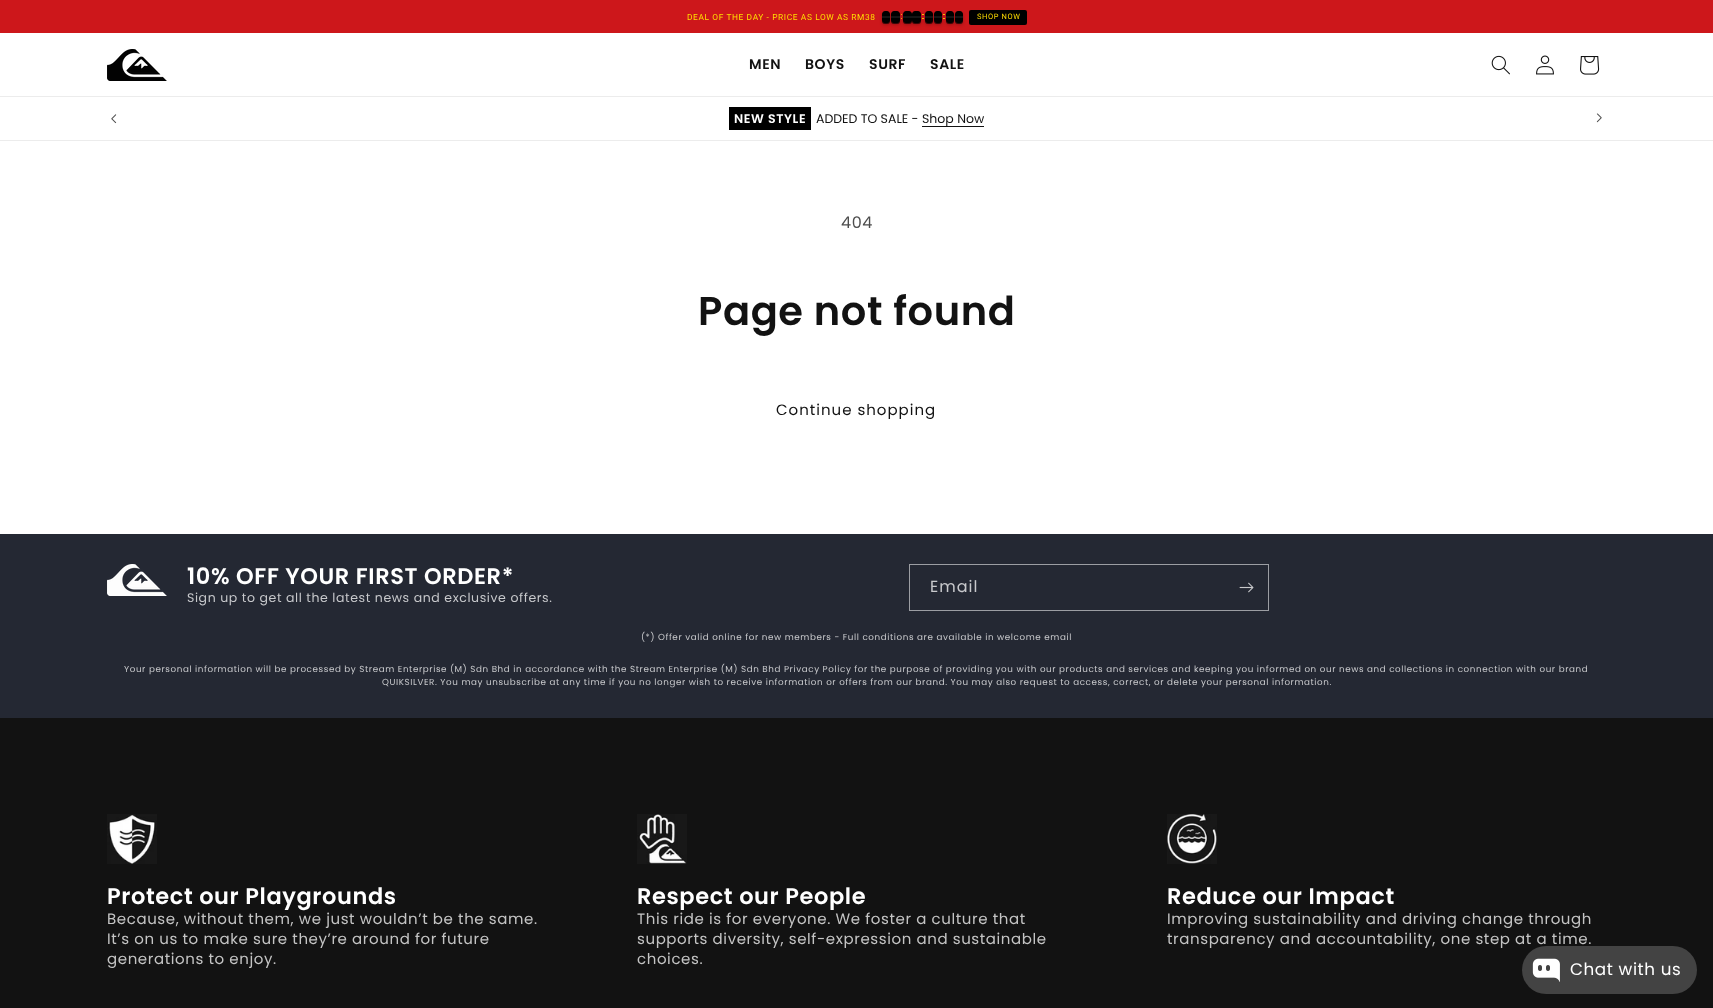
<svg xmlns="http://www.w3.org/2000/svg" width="1713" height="1008">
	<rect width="100%" height="100%" fill="#FFFFFF" />
	<rect x="0" y="0" width="1713" height="33" fill="#CD171B" />
	<text x="687" y="20" font-family="Roboto" font-size="8.4" letter-spacing="0.6" fill="#FFDE00">DEAL OF THE DAY - PRICE AS LOW AS RM38</text>
	<rect x="882" y="13" width="8" height="12" rx="3" fill="#000000" fill-opacity="0.24" filter="blur(1.5px)" />
	<rect x="882" y="18" width="8" height="6" rx="3" fill="#000000" fill-opacity="0.4" filter="blur(0.5px)" />
	<rect x="891" y="13" width="9" height="12" rx="3" fill="#000000" fill-opacity="0.24" filter="blur(1.5px)" />
	<circle cx="901.5" cy="18.5" r="0.5" fill="#FFDE00" />
	<rect x="891" y="18" width="9" height="6" rx="3" fill="#000000" fill-opacity="0.4" filter="blur(0.5px)" />
	<path d="M885 11H887C888.5 11 890 12.5 890 14V17H882V14C882 12.5 883.5 11 885 11Z" fill="#000000" />
	<rect x="882" y="16" width="8" height="1" fill="#333333" fill-opacity="0.4" />
	<rect x="882" y="18" width="8" height="6" rx="3" fill="#000000" fill-opacity="0.4" filter="blur(0.5px)" />
	<path d="M882 17H890V20C890 21.5 888.5 23 887 23H885C883.5 23 882 21.5 882 20Z" fill="#000000" />
	<rect x="882" y="17" width="8" height="1" fill="#CCCCCC" fill-opacity="0.1" />
	<circle cx="901.5" cy="14.5" r="0.5" fill="#FFDE00" />
	<rect x="903" y="13" width="9" height="12" rx="3" fill="#000000" fill-opacity="0.24" filter="blur(1.5px)" />
	<path d="M894 11H897C898.5 11 900 12.5 900 14V17H891V14C891 12.5 892.5 11 894 11Z" fill="#000000" />
	<rect x="891" y="16" width="9" height="1" fill="#333333" fill-opacity="0.4" />
	<rect x="891" y="18" width="9" height="6" rx="3" fill="#000000" fill-opacity="0.4" filter="blur(0.5px)" />
	<path d="M891 17H900V20C900 21.5 898.5 23 897 23H894C892.5 23 891 21.5 891 20Z" fill="#000000" />
	<rect x="891" y="17" width="9" height="1" fill="#CCCCCC" fill-opacity="0.1" />
	<rect x="903" y="18" width="9" height="6" rx="3" fill="#000000" fill-opacity="0.4" filter="blur(0.5px)" />
	<rect x="912" y="13" width="9" height="12" rx="3" fill="#000000" fill-opacity="0.24" filter="blur(1.5px)" />
	<rect x="922" y="18" width="2" height="1" rx="0.5" fill="#FFDE00" />
	<rect x="912" y="18" width="9" height="6" rx="3" fill="#000000" fill-opacity="0.4" filter="blur(0.5px)" />
	<path d="M906 11H909C910.5 11 912 12.5 912 14V17H903V14C903 12.5 904.5 11 906 11Z" fill="#000000" />
	<rect x="903" y="16" width="9" height="1" fill="#333333" fill-opacity="0.4" />
	<rect x="903" y="18" width="9" height="6" rx="3" fill="#000000" fill-opacity="0.4" filter="blur(0.5px)" />
	<path d="M903 17H912V20C912 21.5 910.5 23 909 23H906C904.5 23 903 21.5 903 20Z" fill="#000000" />
	<rect x="903" y="17" width="9" height="1" fill="#CCCCCC" fill-opacity="0.1" />
	<rect x="922" y="14" width="2" height="1" rx="0.5" fill="#FFDE00" />
	<rect x="925" y="13" width="8" height="12" rx="3" fill="#000000" fill-opacity="0.24" filter="blur(1.5px)" />
	<path d="M915 11H918C919.5 11 921 12.5 921 14V17H912V14C912 12.5 913.5 11 915 11Z" fill="#000000" />
	<rect x="912" y="16" width="9" height="1" fill="#333333" fill-opacity="0.4" />
	<rect x="912" y="18" width="9" height="6" rx="3" fill="#000000" fill-opacity="0.4" filter="blur(0.5px)" />
	<path d="M912 17H921V20C921 21.5 919.5 23 918 23H915C913.5 23 912 21.5 912 20Z" fill="#000000" />
	<rect x="912" y="17" width="9" height="1" fill="#CCCCCC" fill-opacity="0.1" />
	<rect x="925" y="18" width="8" height="6" rx="3" fill="#000000" fill-opacity="0.4" filter="blur(0.5px)" />
	<rect x="934" y="13" width="8" height="12" rx="3" fill="#000000" fill-opacity="0.24" filter="blur(1.5px)" />
	<rect x="943" y="18" width="2" height="1" rx="0.5" fill="#FFDE00" />
	<rect x="934" y="18" width="8" height="6" rx="3" fill="#000000" fill-opacity="0.4" filter="blur(0.5px)" />
	<path d="M928 11H930C931.5 11 933 12.5 933 14V17H925V14C925 12.5 926.5 11 928 11Z" fill="#000000" />
	<rect x="925" y="16" width="8" height="1" fill="#333333" fill-opacity="0.4" />
	<rect x="925" y="18" width="8" height="6" rx="3" fill="#000000" fill-opacity="0.4" filter="blur(0.5px)" />
	<path d="M925 17H933V20C933 21.5 931.5 23 930 23H928C926.5 23 925 21.5 925 20Z" fill="#000000" />
	<rect x="925" y="17" width="8" height="1" fill="#CCCCCC" fill-opacity="0.1" />
	<rect x="943" y="14" width="2" height="1" rx="0.5" fill="#FFDE00" />
	<rect x="946" y="13" width="8" height="12" rx="3" fill="#000000" fill-opacity="0.24" filter="blur(1.5px)" />
	<path d="M937 11H939C940.5 11 942 12.5 942 14V17H934V14C934 12.5 935.5 11 937 11Z" fill="#000000" />
	<rect x="934" y="16" width="8" height="1" fill="#333333" fill-opacity="0.4" />
	<rect x="934" y="18" width="8" height="6" rx="3" fill="#000000" fill-opacity="0.4" filter="blur(0.5px)" />
	<path d="M934 17H942V20C942 21.5 940.5 23 939 23H937C935.5 23 934 21.5 934 20Z" fill="#000000" />
	<rect x="934" y="17" width="8" height="1" fill="#CCCCCC" fill-opacity="0.1" />
	<rect x="946" y="18" width="8" height="6" rx="3" fill="#000000" fill-opacity="0.4" filter="blur(0.5px)" />
	<rect x="955" y="13" width="8" height="12" rx="3" fill="#000000" fill-opacity="0.24" filter="blur(1.5px)" />
	<rect x="955" y="18" width="8" height="6" rx="3" fill="#000000" fill-opacity="0.4" filter="blur(0.5px)" />
	<path d="M949 11H951C952.5 11 954 12.5 954 14V17H946V14C946 12.5 947.5 11 949 11Z" fill="#000000" />
	<rect x="946" y="16" width="8" height="1" fill="#333333" fill-opacity="0.4" />
	<rect x="946" y="18" width="8" height="6" rx="3" fill="#000000" fill-opacity="0.4" filter="blur(0.5px)" />
	<path d="M946 17H954V20C954 21.5 952.5 23 951 23H949C947.5 23 946 21.5 946 20Z" fill="#000000" />
	<rect x="946" y="17" width="8" height="1" fill="#CCCCCC" fill-opacity="0.1" />
	<path d="M958 11H960C961.5 11 963 12.5 963 14V17H955V14C955 12.5 956.5 11 958 11Z" fill="#000000" />
	<rect x="955" y="16" width="8" height="1" fill="#333333" fill-opacity="0.4" />
	<rect x="955" y="18" width="8" height="6" rx="3" fill="#000000" fill-opacity="0.4" filter="blur(0.5px)" />
	<path d="M955 17H963V20C963 21.5 961.5 23 960 23H958C956.5 23 955 21.5 955 20Z" fill="#000000" />
	<rect x="955" y="17" width="8" height="1" fill="#CCCCCC" fill-opacity="0.1" />
	<rect x="969" y="10" width="58" height="15" rx="2" fill="#000000" />
	<text x="977" y="19" font-family="Roboto" font-size="7.5" letter-spacing="0.6" fill="#FFDE00">SHOP NOW</text>
	<rect x="0" y="96" width="1713" height="1" fill="#ECECEC" />
	<image x="107" y="49" width="60" height="32" href="assets/img1.png" />
	<g font-family="Poppins" font-size="14" font-weight="600" letter-spacing="0.6" fill="#121212">
		<text x="749" y="69">MEN</text>
		<text x="805" y="69">BOYS</text>
		<text x="869" y="69">SURF</text>
		<text x="930" y="69">SALE</text>
	</g>
	<image x="1491" y="55" width="19" height="20" href="assets/img2.png" />
	<image x="1536" y="55" width="18" height="20" href="assets/img3.png" />
	<image x="1580" y="56" width="20" height="19" href="assets/img4.png" />
	<rect x="0" y="140" width="1713" height="1" fill="#ECECEC" />
	<image x="111" y="114" width="6" height="10" href="assets/img5.png" />
	<rect x="729" y="107" width="82" height="23" fill="#000000" />
	<text x="734" y="123" font-family="Poppins" font-size="12.5" font-weight="600" letter-spacing="0.6" fill="#FFFFFF">NEW STYLE</text>
	<text x="816" y="123" font-family="Poppins" font-size="12.5" fill="#121212">ADDED TO SALE -</text>
	<rect x="922" y="126" width="62" height="1" fill="#121212" />
	<text x="922" y="123" font-family="Poppins" font-size="12.5" fill="#121212">Shop Now</text>
	<image x="1596" y="113" width="6" height="10" href="assets/img6.png" />
	<text x="841" y="228" font-family="Poppins" font-size="16" letter-spacing="0.6" fill="#4D4D4D">404</text>
	<text x="698" y="325" font-family="Poppins" font-size="40" font-weight="600" letter-spacing="0.6" fill="#121212">Page not found</text>
	<text x="776" y="415" font-family="Poppins" font-size="15" letter-spacing="1" fill="#121212">Continue shopping</text>
	<rect x="0" y="534" width="1713" height="184" fill="#242833" />
	<image x="107" y="564" width="60" height="32" href="assets/img7.png" />
	<text x="187" y="584" font-family="Poppins" font-size="22.5" font-weight="600" letter-spacing="0.6" fill="#FFFFFF">10% OFF YOUR FIRST ORDER*</text>
	<text x="187" y="602" font-family="Poppins" font-size="12.5" letter-spacing="0.6" fill="#C8C9CC">Sign up to get all the latest news and exclusive offers.</text>
	<rect x="909.5" y="564.5" width="359" height="46" fill="none" stroke="#9C9EA3" />
	<text x="930" y="592" font-family="Poppins" font-size="16" letter-spacing="1" fill="#C8C9CC">Email</text>
	<image x="1239" y="582" width="15" height="11" href="assets/img8.png" />
	<g font-family="Poppins" font-size="8.75" letter-spacing="0.6" fill="#C8C9CC">
		<text x="641" y="640">(*) Offer valid online for new members - Full conditions are available in welcome email</text>
		<text x="124" y="672">Your personal information will be processed by Stream Enterprise (M) Sdn Bhd in accordance with the Stream Enterprise (M) Sdn Bhd Privacy Policy for the purpose of providing you with our products and services and keeping you informed on our news and collections in connection with our brand</text>
		<text x="382" y="685">QUIKSILVER. You may unsubscribe at any time if you no longer wish to receive information or offers from our brand. You may also request to access, correct, or delete your personal information.</text>
	</g>
	<rect x="0" y="718" width="1713" height="290" fill="#121212" />
	<image x="107" y="814" width="50" height="50" href="assets/img9.png" />
	<text x="107" y="904" font-family="Poppins" font-size="22.5" font-weight="600" letter-spacing="0.6" fill="#FFFFFF">Protect our Playgrounds</text>
	<g font-family="Poppins" font-size="15" letter-spacing="0.6" fill="#C4C4C4">
		<text x="107" y="924">Because, without them, we just wouldn’t be the same.</text>
		<text x="107" y="944">It’s on us to make sure they’re around for future</text>
		<text x="107" y="964">generations to enjoy.</text>
	</g>
	<image x="637" y="814" width="50" height="50" href="assets/img10.png" />
	<text x="637" y="904" font-family="Poppins" font-size="22.5" font-weight="600" letter-spacing="0.6" fill="#FFFFFF">Respect our People</text>
	<g font-family="Poppins" font-size="15" letter-spacing="0.6" fill="#C4C4C4">
		<text x="637" y="924">This ride is for everyone. We foster a culture that</text>
		<text x="637" y="944">supports diversity, self-expression and sustainable</text>
		<text x="637" y="964">choices.</text>
	</g>
	<image x="1167" y="814" width="50" height="50" href="assets/img11.png" />
	<text x="1167" y="904" font-family="Poppins" font-size="22.5" font-weight="600" letter-spacing="0.6" fill="#FFFFFF">Reduce our Impact</text>
	<g font-family="Poppins" font-size="15" letter-spacing="0.6" fill="#C4C4C4">
		<text x="1167" y="924">Improving sustainability and driving change through</text>
		<text x="1167" y="944">transparency and accountability, one step at a time.</text>
	</g>
	<rect x="1522" y="946" width="175" height="48" rx="24" fill="#434343" />
	<image x="1532" y="958" width="28" height="24" href="assets/img12.png" />
	<text x="1570" y="975" font-family="Poppins" font-size="16.75" letter-spacing="0.6" fill="#FFFFFF">Chat with us</text>
</svg>
